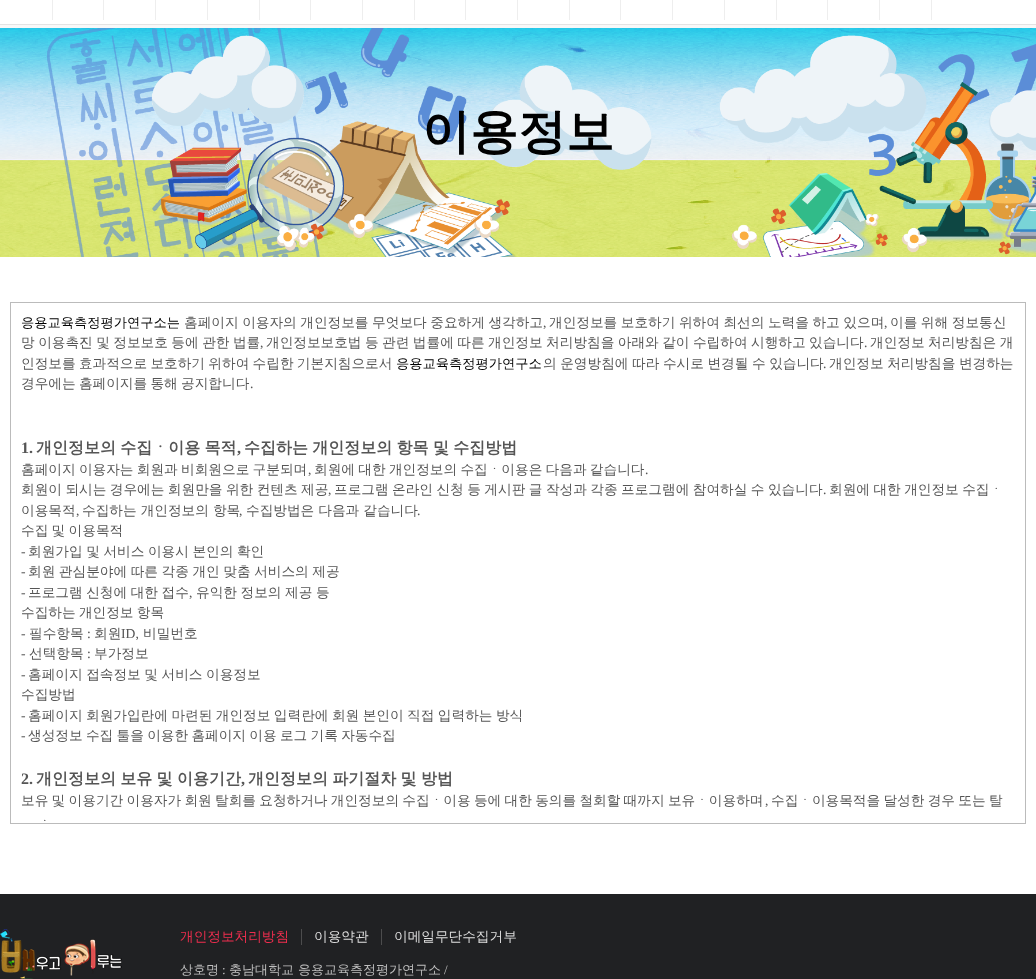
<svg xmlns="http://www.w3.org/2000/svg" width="1036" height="979">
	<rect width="100%" height="100%" fill="#FFFFFF" />
	<rect x="52" y="0" width="1" height="20" fill="#EEEEEE" />
	<rect x="103" y="0" width="1" height="20" fill="#EEEEEE" />
	<rect x="155" y="0" width="1" height="20" fill="#EEEEEE" />
	<rect x="207" y="0" width="1" height="20" fill="#EEEEEE" />
	<rect x="259" y="0" width="1" height="20" fill="#EEEEEE" />
	<rect x="310" y="0" width="1" height="20" fill="#EEEEEE" />
	<rect x="362" y="0" width="1" height="20" fill="#EEEEEE" />
	<rect x="414" y="0" width="1" height="20" fill="#EEEEEE" />
	<rect x="465" y="0" width="1" height="20" fill="#EEEEEE" />
	<rect x="517" y="0" width="1" height="20" fill="#EEEEEE" />
	<rect x="569" y="0" width="1" height="20" fill="#EEEEEE" />
	<rect x="620" y="0" width="1" height="20" fill="#EEEEEE" />
	<rect x="672" y="0" width="1" height="20" fill="#EEEEEE" />
	<rect x="724" y="0" width="1" height="20" fill="#EEEEEE" />
	<rect x="776" y="0" width="1" height="20" fill="#EEEEEE" />
	<rect x="827" y="0" width="1" height="20" fill="#EEEEEE" />
	<rect x="879" y="0" width="1" height="20" fill="#EEEEEE" />
	<rect x="931" y="0" width="1" height="20" fill="#EEEEEE" />
	<rect x="0" y="25" width="1036" height="3" fill="#F8F8F8" />
	<rect x="0" y="24" width="1036" height="1" fill="#E3E3E3" />
	<image x="0" y="28" width="1036" height="229" href="assets/img1.png" />
	<image x="47" y="28" width="989" height="229" href="assets/img2.png" />
	<text x="422" y="148" font-family="WenQuanYi Zen Hei" font-size="48" font-weight="700" fill="#000000">이용정보</text>
	<rect x="10.5" y="302.5" width="1015" height="521" fill="none" stroke="#BBBBBB" />
	<text x="21" y="327" font-family="WenQuanYi Zen Hei" font-size="13.25" font-weight="500" fill="#000000">응용교육측정평가연구소는</text>
	<text x="184" y="327" word-spacing="-0.5" font-family="WenQuanYi Zen Hei" font-size="13.65" font-weight="500" fill="#555555">홈페이지 이용자의 개인정보를 무엇보다 중요하게 생각하고</text>
	<text x="543" y="327" font-family="Liberation Serif" font-size="13.65" fill="#555555">,</text>
	<text x="549" y="327" word-spacing="-0.5" font-family="WenQuanYi Zen Hei" font-size="13.65" font-weight="500" fill="#555555">개인정보를 보호하기 위하여 최선의 노력을 하고 있으며</text>
	<text x="884" y="327" font-family="Liberation Serif" font-size="13.65" fill="#555555">,</text>
	<g font-family="WenQuanYi Zen Hei" font-size="13.65" font-weight="500" fill="#555555">
		<text x="890" y="327" word-spacing="-0.5">이를 위해 정보통신</text>
		<text x="21" y="347" word-spacing="-0.6">망 이용촉진 및 정보보호 등에 관한 법률</text>
	</g>
	<text x="260" y="347" font-family="Liberation Serif" font-size="13.65" fill="#555555">,</text>
	<text x="266" y="347" word-spacing="-0.6" font-family="WenQuanYi Zen Hei" font-size="13.65" font-weight="500" fill="#555555">개인정보보호법 등 관련 법률에 따른 개인정보 처리방침을 아래와 같이 수립하여 시행하고 있습니다</text>
	<text x="864" y="347" font-family="Liberation Serif" font-size="13.65" fill="#555555">.</text>
	<g font-family="WenQuanYi Zen Hei" font-size="13.65" font-weight="500" fill="#555555">
		<text x="870" y="347" word-spacing="-0.6">개인정보 처리방침은 개</text>
		<text x="21" y="368" word-spacing="-0.75">인정보를 효과적으로 보호하기 위하여 수립한 기본지침으로서</text>
	</g>
	<text x="396" y="368" font-family="WenQuanYi Zen Hei" font-size="13.25" font-weight="500" fill="#000000">응용교육측정평가연구소</text>
	<text x="543" y="368" word-spacing="-0.5" font-family="WenQuanYi Zen Hei" font-size="13.65" font-weight="500" fill="#555555">의 운영방침에 따라 수시로 변경될 수 있습니다</text>
	<text x="823" y="368" font-family="Liberation Serif" font-size="13.65" fill="#555555">.</text>
	<g font-family="WenQuanYi Zen Hei" font-size="13.65" font-weight="500" fill="#555555">
		<text x="829" y="368" word-spacing="-0.5">개인정보 처리방침을 변경하는</text>
		<text x="21" y="388" word-spacing="-0.75">경우에는 홈페이지를 통해 공지합니다</text>
	</g>
	<text x="250" y="388" font-family="Liberation Serif" font-size="13.65" fill="#555555">.</text>
	<text x="21" y="453" font-family="Liberation Serif" font-size="16" font-weight="700" fill="#555555">1.</text>
	<text x="36" y="453" word-spacing="-0.5" font-family="WenQuanYi Zen Hei" font-size="16" font-weight="700" fill="#555555">개인정보의 수집ㆍ이용 목적</text>
	<text x="237" y="453" font-family="Liberation Serif" font-size="16" font-weight="700" fill="#555555">,</text>
	<text x="244" y="453" word-spacing="-0.5" font-family="WenQuanYi Zen Hei" font-size="16" font-weight="700" fill="#555555">수집하는 개인정보의 항목 및 수집방법</text>
	<text x="21" y="474" word-spacing="-0.75" font-family="WenQuanYi Zen Hei" font-size="13.65" font-weight="500" fill="#555555">홈페이지 이용자는 회원과 비회원으로 구분되며</text>
	<text x="308" y="474" font-family="Liberation Serif" font-size="13.65" fill="#555555">,</text>
	<text x="314" y="474" word-spacing="-0.75" font-family="WenQuanYi Zen Hei" font-size="13.65" font-weight="500" fill="#555555">회원에 대한 개인정보의 수집ㆍ이용은 다음과 같습니다</text>
	<text x="645" y="474" font-family="Liberation Serif" font-size="13.65" fill="#555555">.</text>
	<text x="21" y="494" word-spacing="-0.6" font-family="WenQuanYi Zen Hei" font-size="13.65" font-weight="500" fill="#555555">회원이 되시는 경우에는 회원만을 위한 컨텐츠 제공</text>
	<text x="328" y="494" font-family="Liberation Serif" font-size="13.65" fill="#555555">,</text>
	<text x="334" y="494" word-spacing="-0.6" font-family="WenQuanYi Zen Hei" font-size="13.65" font-weight="500" fill="#555555">프로그램 온라인 신청 등 게시판 글 작성과 각종 프로그램에 참여하실 수 있습니다</text>
	<text x="823" y="494" font-family="Liberation Serif" font-size="13.65" fill="#555555">.</text>
	<g font-family="WenQuanYi Zen Hei" font-size="13.65" font-weight="500" fill="#555555">
		<text x="829" y="494" word-spacing="-0.6">회원에 대한 개인정보 수집ㆍ</text>
		<text x="21" y="515">이용목적</text>
	</g>
	<text x="76" y="515" font-family="Liberation Serif" font-size="13.65" fill="#555555">,</text>
	<text x="82" y="515" font-family="WenQuanYi Zen Hei" font-size="13.65" font-weight="500" fill="#555555">수집하는 개인정보의 항목</text>
	<text x="239" y="515" font-family="Liberation Serif" font-size="13.65" fill="#555555">,</text>
	<text x="246" y="515" font-family="WenQuanYi Zen Hei" font-size="13.65" font-weight="500" fill="#555555">수집방법은 다음과 같습니다</text>
	<text x="417" y="515" font-family="Liberation Serif" font-size="13.65" fill="#555555">.</text>
	<text x="21" y="535" word-spacing="-0.75" font-family="WenQuanYi Zen Hei" font-size="13.65" font-weight="500" fill="#555555">수집 및 이용목적</text>
	<text x="21" y="556" font-family="Liberation Serif" font-size="13.65" fill="#555555">-</text>
	<text x="28" y="556" word-spacing="-0.5" font-family="WenQuanYi Zen Hei" font-size="13.65" font-weight="500" fill="#555555">회원가입 및 서비스 이용시 본인의 확인</text>
	<text x="21" y="576" font-family="Liberation Serif" font-size="13.65" fill="#555555">-</text>
	<text x="28" y="576" word-spacing="-0.5" font-family="WenQuanYi Zen Hei" font-size="13.65" font-weight="500" fill="#555555">회원 관심분야에 따른 각종 개인 맞춤 서비스의 제공</text>
	<text x="21" y="597" font-family="Liberation Serif" font-size="13.65" fill="#555555">-</text>
	<g font-family="WenQuanYi Zen Hei" font-size="13.65" font-weight="500" fill="#555555">
		<text x="28" y="597" word-spacing="-0.5">프로그램 신청에 대한 접수</text>
		<text x="196" y="597" word-spacing="-0.5">유익한 정보의 제공 등</text>
	</g>
	<text x="189" y="597" font-family="Liberation Serif" font-size="13.65" fill="#555555">,</text>
	<text x="21" y="617" word-spacing="-0.75" font-family="WenQuanYi Zen Hei" font-size="13.65" font-weight="500" fill="#555555">수집하는 개인정보 항목</text>
	<text x="21" y="638" font-family="Liberation Serif" font-size="13.65" fill="#555555">-</text>
	<text x="29" y="638" font-family="WenQuanYi Zen Hei" font-size="13.65" font-weight="500" fill="#555555">필수항목</text>
	<text x="87" y="638" font-family="Liberation Serif" font-size="13.65" fill="#555555">:</text>
	<text x="94" y="638" font-family="WenQuanYi Zen Hei" font-size="13.65" font-weight="500" fill="#555555">회원</text>
	<text x="121" y="638" font-family="Liberation Serif" font-size="13.65" fill="#555555">ID,</text>
	<text x="143" y="638" font-family="WenQuanYi Zen Hei" font-size="13.65" font-weight="500" fill="#555555">비밀번호</text>
	<text x="21" y="658" font-family="Liberation Serif" font-size="13.65" fill="#555555">-</text>
	<text x="29" y="658" font-family="WenQuanYi Zen Hei" font-size="13.65" font-weight="500" fill="#555555">선택항목</text>
	<text x="87" y="658" font-family="Liberation Serif" font-size="13.65" fill="#555555">:</text>
	<text x="94" y="658" font-family="WenQuanYi Zen Hei" font-size="13.65" font-weight="500" fill="#555555">부가정보</text>
	<text x="21" y="679" font-family="Liberation Serif" font-size="13.65" fill="#555555">-</text>
	<g font-family="WenQuanYi Zen Hei" font-size="13.65" font-weight="500" fill="#555555">
		<text x="28" y="679" word-spacing="-0.5">홈페이지 접속정보 및 서비스 이용정보</text>
		<text x="21" y="699">수집방법</text>
	</g>
	<text x="21" y="720" font-family="Liberation Serif" font-size="13.65" fill="#555555">-</text>
	<text x="28" y="720" word-spacing="-0.6" font-family="WenQuanYi Zen Hei" font-size="13.65" font-weight="500" fill="#555555">홈페이지 회원가입란에 마련된 개인정보 입력란에 회원 본인이 직접 입력하는 방식</text>
	<text x="21" y="740" font-family="Liberation Serif" font-size="13.65" fill="#555555">-</text>
	<text x="28" y="740" word-spacing="-0.75" font-family="WenQuanYi Zen Hei" font-size="13.65" font-weight="500" fill="#555555">생성정보 수집 툴을 이용한 홈페이지 이용 로그 기록 자동수집</text>
	<text x="21" y="784" font-family="Liberation Serif" font-size="16" font-weight="700" fill="#555555">2.</text>
	<text x="36" y="784" word-spacing="-0.5" font-family="WenQuanYi Zen Hei" font-size="16" font-weight="700" fill="#555555">개인정보의 보유 및 이용기간</text>
	<text x="241" y="784" font-family="Liberation Serif" font-size="16" font-weight="700" fill="#555555">,</text>
	<text x="248" y="784" word-spacing="-0.5" font-family="WenQuanYi Zen Hei" font-size="16" font-weight="700" fill="#555555">개인정보의 파기절차 및 방법</text>
	<text x="21" y="805" word-spacing="-0.75" font-family="WenQuanYi Zen Hei" font-size="13.65" font-weight="500" fill="#555555">보유 및 이용기간 이용자가 회원 탈회를 요청하거나 개인정보의 수집ㆍ이용 등에 대한 동의를 철회할 때까지 보유ㆍ이용하며</text>
	<text x="765" y="805" font-family="Liberation Serif" font-size="13.65" fill="#555555">,</text>
	<g font-family="WenQuanYi Zen Hei" font-size="13.65" font-weight="500" fill="#555555">
		<text x="771" y="805" word-spacing="-0.75">수집ㆍ이용목적을 달성한 경우 또는 탈</text>
		<text x="38" y="826" word-spacing="-0.5">ㆍ</text>
	</g>
	<rect x="0" y="894" width="1036" height="85" fill="#202123" />
	<image x="0" y="929" width="122" height="50" href="assets/img3.png" />
	<text x="180" y="941" font-family="WenQuanYi Zen Hei" font-size="13.65" font-weight="500" fill="#EE2E4E">개인정보처리방침</text>
	<rect x="301" y="929" width="1" height="16" fill="#4C4C4D" />
	<text x="314" y="941" font-family="WenQuanYi Zen Hei" font-size="13.65" font-weight="500" fill="#DFDFDF">이용약관</text>
	<rect x="381" y="929" width="1" height="16" fill="#4C4C4D" />
	<text x="394" y="941" font-family="WenQuanYi Zen Hei" font-size="13.65" font-weight="500" fill="#DFDFDF">이메일무단수집거부</text>
	<text x="180" y="974" font-family="WenQuanYi Zen Hei" font-size="13" font-weight="500" fill="#BEBEBE">상호명</text>
	<text x="222" y="974" font-family="Liberation Serif" font-size="13" fill="#BEBEBE">:</text>
	<text x="229" y="974" font-family="WenQuanYi Zen Hei" font-size="13" font-weight="500" fill="#BEBEBE">충남대학교 응용교육측정평가연구소</text>
	<text x="444" y="974" font-family="Liberation Serif" font-size="13" fill="#BEBEBE">/</text>
</svg>
